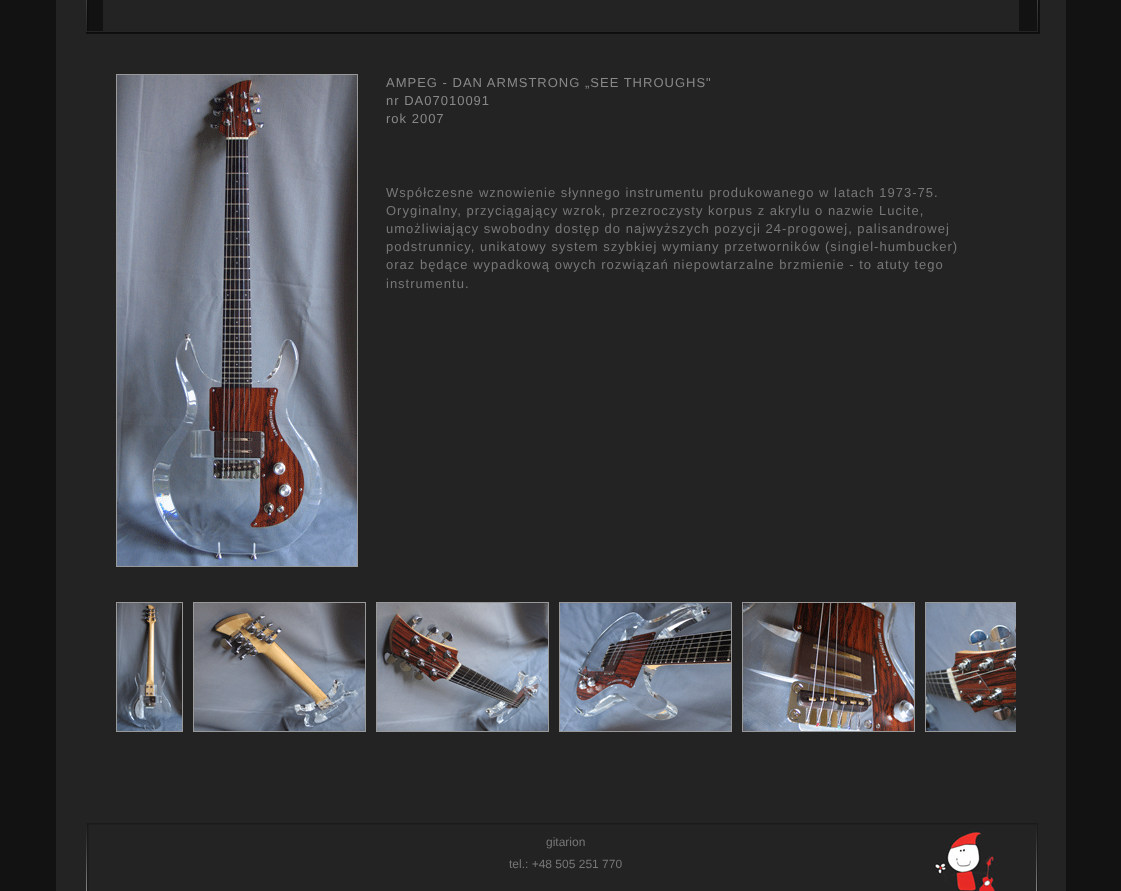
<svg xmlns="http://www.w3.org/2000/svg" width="1121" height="891">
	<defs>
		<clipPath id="clip1"><rect x="86" y="567" width="930" height="195" /></clipPath>
	</defs>
	<rect width="100%" height="100%" fill="#121212" />
	<rect x="56" y="0" width="1010" height="891" fill="#232323" />
	<image x="86" y="0" width="954" height="34" href="assets/img1.png" />
	<rect x="116.5" y="74.5" width="241" height="492" fill="none" stroke="#999999" />
	<image x="117" y="75" width="240" height="491" href="assets/img2.png" />
	<g font-family="Liberation Sans" font-size="13" letter-spacing="1" fill="#888888">
		<text x="386" y="87">AMPEG - DAN ARMSTRONG „SEE THROUGHS"</text>
		<text x="386" y="105">nr DA07010091</text>
		<text x="386" y="123">rok 2007</text>
	</g>
	<g font-family="Liberation Sans" font-size="13" letter-spacing="1" fill="#777777">
		<text x="386" y="197">Współczesne wznowienie słynnego instrumentu produkowanego w latach 1973-75.</text>
		<text x="386" y="215">Oryginalny, przyciągający wzrok, przezroczysty korpus z akrylu o nazwie Lucite,</text>
		<text x="386" y="233">umożliwiający swobodny dostęp do najwyższych pozycji 24-progowej, palisandrowej</text>
		<text x="386" y="251">podstrunnicy, unikatowy system szybkiej wymiany przetworników (singiel-humbucker)</text>
		<text x="386" y="269">oraz będące wypadkową owych rozwiązań niepowtarzalne brzmienie - to atuty tego</text>
		<text x="386" y="288">instrumentu.</text>
	</g>
	<rect x="116.5" y="602.5" width="66" height="129" fill="none" stroke="#999999" />
	<image x="117" y="603" width="65" height="128" href="assets/img3.png" />
	<rect x="193.5" y="602.5" width="172" height="129" fill="none" stroke="#999999" />
	<image x="194" y="603" width="171" height="128" href="assets/img4.png" />
	<rect x="376.5" y="602.5" width="172" height="129" fill="none" stroke="#999999" />
	<image x="377" y="603" width="171" height="128" href="assets/img5.png" />
	<rect x="559.5" y="602.5" width="172" height="129" fill="none" stroke="#999999" />
	<image x="560" y="603" width="171" height="128" href="assets/img6.png" />
	<rect x="742.5" y="602.5" width="172" height="129" fill="none" stroke="#999999" />
	<image x="743" y="603" width="171" height="128" href="assets/img7.png" />
	<g clip-path="url(#clip1)">
		<rect x="925.5" y="602.5" width="172" height="129" fill="none" stroke="#999999" />
	</g>
	<image x="926" y="603" width="90" height="128" href="assets/img8.png" />
	<image x="86" y="823" width="952" height="68" href="assets/img9.png" />
	<g font-family="Liberation Sans" font-size="12" fill="#777777">
		<text x="546" y="846">gitarion</text>
		<text x="509" y="868">tel.: +48 505 251 770</text>
	</g>
	<image x="933" y="828" width="65" height="63" href="assets/img10.png" />
</svg>
